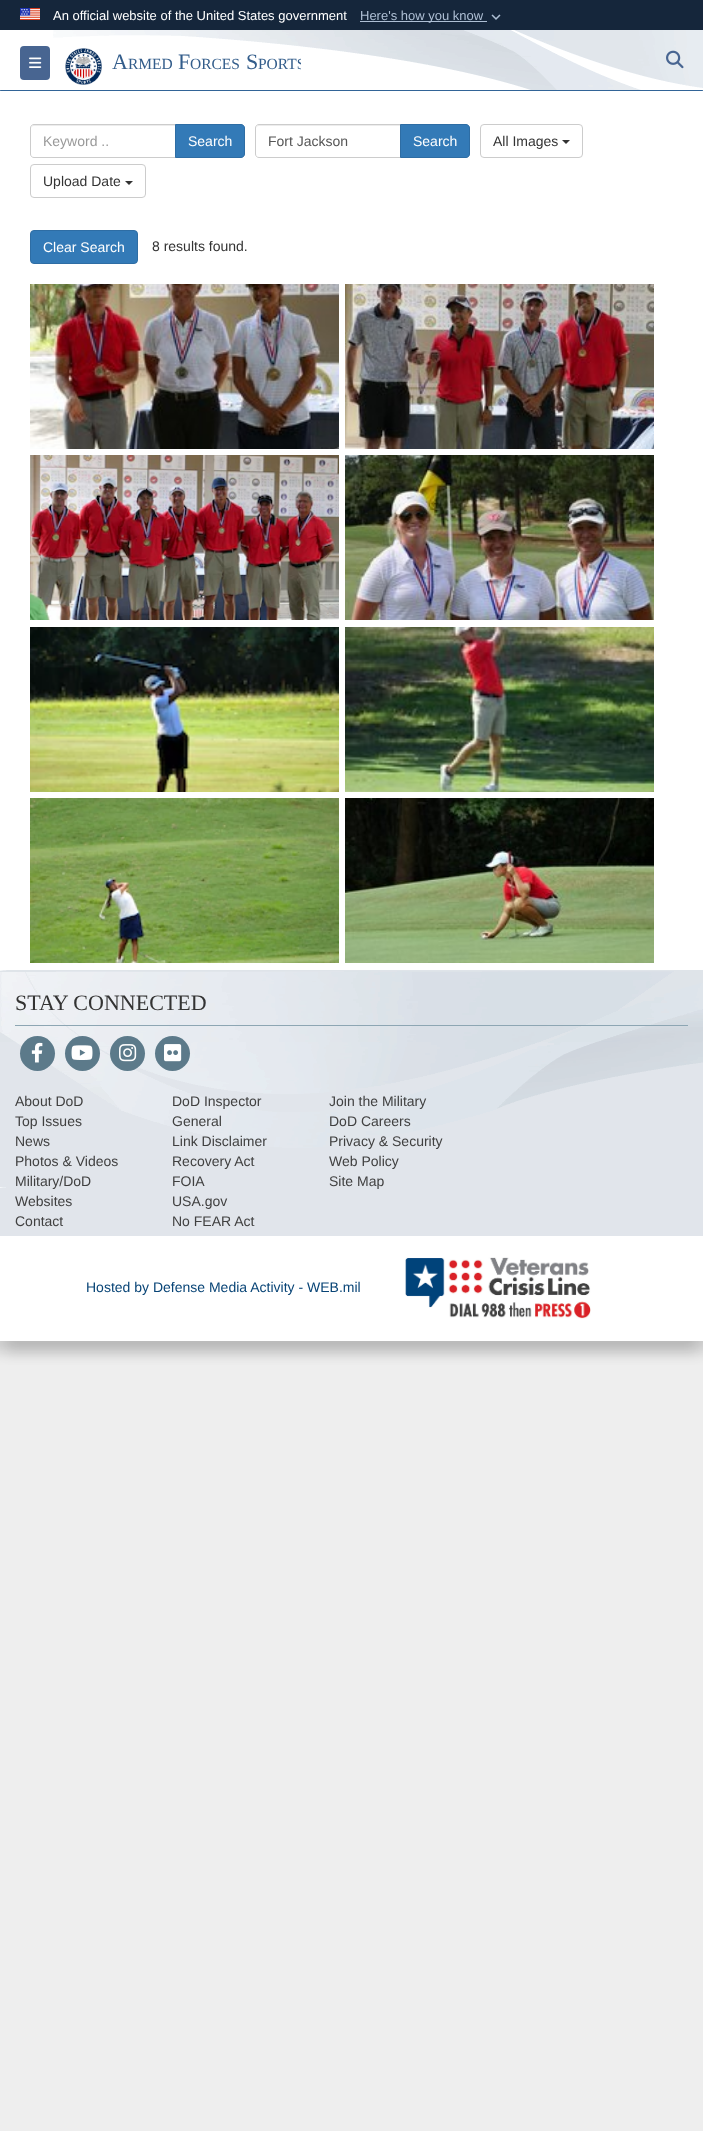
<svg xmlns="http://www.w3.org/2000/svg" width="703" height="2131">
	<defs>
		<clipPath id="clip1"><rect x="112" y="50" width="189" height="24" /></clipPath>
	</defs>
	<rect width="100%" height="100%" fill="#EEEEEE" />
	<rect x="-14" y="33" width="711" height="1319" fill="#000000" fill-opacity="0.12" filter="blur(7px)" />
	<rect x="6" y="33" width="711" height="1319" fill="#000000" fill-opacity="0.12" filter="blur(7px)" />
	<rect x="0" y="0" width="703" height="30" fill="#15263B" />
	<image x="20" y="8" width="20" height="12" href="assets/img1.png" />
	<text x="53" y="20" font-family="Liberation Sans" font-size="13" fill="#FFFFFF">An official website of the United States government</text>
	<rect x="360" y="21" width="127" height="1" fill="#AEBFD4" />
	<text x="360" y="20" font-family="Liberation Sans" font-size="13" fill="#AEBFD4">Here's how you know</text>
	<image x="491" y="14" width="10" height="6" href="assets/img2.png" />
	<rect x="0" y="30" width="703" height="940" fill="#FFFFFF" />
	<image x="53" y="30" width="650" height="60" href="assets/img3.png" />
	<rect x="20" y="46" width="30" height="34" rx="4" fill="#486591" />
	<image x="29" y="57" width="13" height="11" href="assets/img4.png" />
	<image x="65" y="48" width="37" height="37" href="assets/img5.png" />
	<text x="112" y="69" font-family="Liberation Serif" font-size="22" fill="#335D8B">A</text>
	<text x="128" y="69" font-family="Liberation Serif" font-size="15.5" fill="#335D8B">RMED</text>
	<text x="178" y="69" font-family="Liberation Serif" font-size="22" fill="#335D8B">F</text>
	<text x="190" y="69" font-family="Liberation Serif" font-size="15.5" fill="#335D8B">ORCES</text>
	<text x="246" y="69" font-family="Liberation Serif" font-size="22" fill="#335D8B">S</text>
	<g clip-path="url(#clip1)">
		<text x="258" y="69" font-family="Liberation Serif" font-size="15.5" fill="#335D8B">PORTS</text>
	</g>
	<image x="666" y="50" width="18" height="19" href="assets/img6.png" />
	<rect x="0" y="90" width="703" height="1" rx="0.5" fill="#326497" />
	<path d="M34 126H175V125H34C32 125 31 127 31 129C31 127 32 126 34 126Z" fill="#ECECEC" />
	<path d="M34 124.5H175.5V157.5H34C32 157.5 30.5 156 30.5 154V128C30.5 126 32 124.5 34 124.5Z" fill="none" stroke="#CCCCCC" />
	<text x="43" y="146" font-family="Liberation Sans" font-size="14" fill="#999999">Keyword ..</text>
	<path d="M175.5 124.5H241C243 124.5 244.5 126 244.5 128V154C244.5 156 243 157.5 241 157.5H175.5Z" fill="#337AB7" stroke="#2E6DA4" />
	<text x="188" y="146" font-family="Liberation Sans" font-size="14" fill="#FFFFFF">Search</text>
	<path d="M259 126H400V125H259C257 125 256 127 256 129C256 127 257 126 259 126Z" fill="#ECECEC" />
	<path d="M259 124.5H400.5V157.5H259C257 157.5 255.5 156 255.5 154V128C255.5 126 257 124.5 259 124.5Z" fill="none" stroke="#CCCCCC" />
	<text x="268" y="146" font-family="Liberation Sans" font-size="14" fill="#555555">Fort Jackson</text>
	<path d="M400.5 124.5H466C468 124.5 469.5 126 469.5 128V154C469.5 156 468 157.5 466 157.5H400.5Z" fill="#337AB7" stroke="#2E6DA4" />
	<text x="413" y="146" font-family="Liberation Sans" font-size="14" fill="#FFFFFF">Search</text>
	<rect x="480.5" y="124.5" width="102" height="33" rx="3.5" fill="none" stroke="#CCCCCC" />
	<text x="493" y="146" font-family="Liberation Sans" font-size="14" fill="#333333">All Images</text>
	<path d="M562 140H570L566 144Z" fill="#333333" />
	<rect x="30.5" y="164.5" width="115" height="33" rx="3.5" fill="none" stroke="#CCCCCC" />
	<text x="43" y="186" font-family="Liberation Sans" font-size="14" fill="#333333">Upload Date</text>
	<path d="M125 181H133L129 185Z" fill="#333333" />
	<rect x="30.5" y="230.5" width="107" height="33" rx="3.5" fill="#337AB7" stroke="#2E6DA4" />
	<text x="43" y="252" font-family="Liberation Sans" font-size="14" fill="#FFFFFF">Clear Search</text>
	<text x="152" y="251" font-family="Liberation Sans" font-size="14" fill="#333333">8 results found.</text>
	<image x="30" y="284" width="309" height="165" href="assets/img7.png" />
	<image x="345" y="284" width="309" height="165" href="assets/img8.png" />
	<image x="30" y="455" width="309" height="165" href="assets/img9.png" />
	<image x="345" y="455" width="309" height="165" href="assets/img10.png" />
	<image x="30" y="627" width="309" height="165" href="assets/img11.png" />
	<image x="345" y="627" width="309" height="165" href="assets/img12.png" />
	<image x="30" y="798" width="309" height="165" href="assets/img13.png" />
	<image x="345" y="798" width="309" height="165" href="assets/img14.png" />
	<rect x="0" y="1188" width="703" height="48" fill="#E1E5EB" />
	<image x="0" y="970" width="703" height="218" href="assets/img15.png" />
	<rect x="15" y="1025" width="673" height="1" fill="#8DA6B3" />
	<text x="15" y="1010" font-family="Liberation Serif" font-size="22" fill="#333333">STAY CONNECTED</text>
	<circle cx="37.5" cy="1053.5" r="17.5" fill="#5C7A8A" />
	<image x="31" y="1042" width="12" height="21" href="assets/img16.png" />
	<circle cx="82.5" cy="1053.5" r="17.5" fill="#5C7A8A" />
	<image x="71" y="1045" width="22" height="15" href="assets/img17.png" />
	<circle cx="127.5" cy="1053.5" r="17.5" fill="#5C7A8A" />
	<image x="119" y="1044" width="18" height="18" href="assets/img18.png" />
	<circle cx="172.5" cy="1053.5" r="17.5" fill="#5C7A8A" />
	<image x="164" y="1044" width="18" height="18" href="assets/img19.png" />
	<g font-family="Liberation Sans" font-size="14" fill="#404040">
		<text x="15" y="1106">About DoD</text>
		<text x="15" y="1126">Top Issues</text>
		<text x="15" y="1146">News</text>
		<text x="15" y="1166">Photos &amp; Videos</text>
		<text x="15" y="1186">Military/DoD</text>
		<text x="15" y="1206">Websites</text>
		<text x="15" y="1226">Contact</text>
		<text x="172" y="1106">DoD Inspector</text>
		<text x="172" y="1126">General</text>
		<text x="172" y="1146">Link Disclaimer</text>
		<text x="172" y="1166">Recovery Act</text>
		<text x="172" y="1186">FOIA</text>
		<text x="172" y="1206">USA.gov</text>
		<text x="172" y="1226">No FEAR Act</text>
		<text x="329" y="1106">Join the Military</text>
		<text x="329" y="1126">DoD Careers</text>
		<text x="329" y="1146">Privacy &amp; Security</text>
		<text x="329" y="1166">Web Policy</text>
		<text x="329" y="1186">Site Map</text>
	</g>
	<rect x="0" y="1236" width="703" height="105" fill="#FFFFFF" />
	<text x="86" y="1292" font-family="Liberation Sans" font-size="14" fill="#084476">Hosted by Defense Media Activity - WEB.mil</text>
	<image x="405" y="1257" width="186" height="62" href="assets/img20.png" />
</svg>
